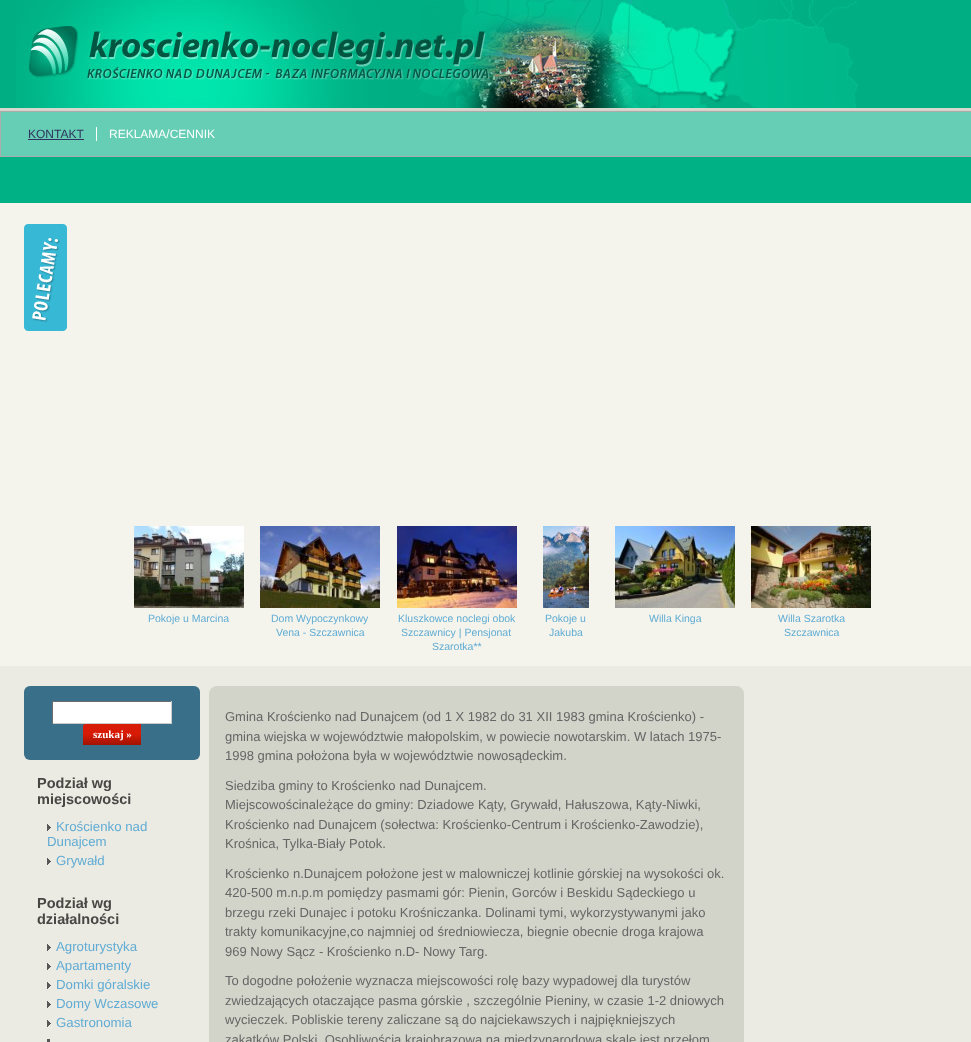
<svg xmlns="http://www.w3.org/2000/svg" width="971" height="1042">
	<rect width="100%" height="100%" fill="#EBEAE3" />
	<image x="0" y="0" width="971" height="111" href="assets/img1.png" />
	<image x="16" y="0" width="842" height="108" href="assets/img2.png" />
	<rect x="0.5" y="111.5" width="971" height="45" fill="#66CEB4" stroke="#ABABAB" />
	<text x="28" y="138" font-family="Liberation Sans" font-size="12" fill="#2E345D">KONTAKT</text>
	<rect x="28" y="139" width="56" height="1" fill="#2E345D" />
	<text x="109" y="138" font-family="Liberation Sans" font-size="12" fill="#FFFFFF">REKLAMA/CENNIK</text>
	<rect x="96" y="127" width="1" height="14" fill="#FFFFFF" />
	<rect x="0" y="157" width="971" height="46" fill="#00B185" />
	<rect x="0" y="203" width="971" height="463" fill="#F5F4EC" />
	<image x="24" y="224" width="43" height="107" href="assets/img3.png" />
	<image x="134" y="526" width="110" height="82" href="assets/img4.png" />
	<text x="148" y="622" font-family="Liberation Sans" font-size="10.5" fill="#60ACD4">Pokoje u Marcina</text>
	<image x="260" y="526" width="120" height="82" href="assets/img5.png" />
	<g font-family="Liberation Sans" font-size="10.5" fill="#60ACD4">
		<text x="271" y="622">Dom Wypoczynkowy</text>
		<text x="276" y="636">Vena - Szczawnica</text>
	</g>
	<image x="397" y="526" width="120" height="82" href="assets/img6.png" />
	<g font-family="Liberation Sans" font-size="10.5" fill="#60ACD4">
		<text x="398" y="622">Kluszkowce noclegi obok</text>
		<text x="401" y="636">Szczawnicy | Pensjonat</text>
		<text x="432" y="650">Szarotka**</text>
	</g>
	<image x="543" y="526" width="46" height="82" href="assets/img7.png" />
	<g font-family="Liberation Sans" font-size="10.5" fill="#60ACD4">
		<text x="545" y="622">Pokoje u</text>
		<text x="549" y="636">Jakuba</text>
	</g>
	<image x="615" y="526" width="120" height="82" href="assets/img8.png" />
	<text x="649" y="622" font-family="Liberation Sans" font-size="10.5" fill="#60ACD4">Willa Kinga</text>
	<image x="751" y="526" width="120" height="82" href="assets/img9.png" />
	<g font-family="Liberation Sans" font-size="10.5" fill="#60ACD4">
		<text x="778" y="622">Willa Szarotka</text>
		<text x="784" y="636">Szczawnica</text>
	</g>
	<rect x="24" y="686" width="176" height="74" rx="6" fill="#3A6F8A" />
	<rect x="53" y="702" width="118" height="21" fill="#FFFFFF" />
	<rect x="52" y="701" width="120" height="1" fill="#6C6C6C" />
	<rect x="171" y="701" width="1" height="23" fill="#CCCCCC" />
	<rect x="52" y="723" width="120" height="1" fill="#CCCCCC" />
	<rect x="52" y="701" width="1" height="23" fill="#6C6C6C" />
	<image x="83" y="724" width="58" height="21" href="assets/img10.png" />
	<text x="93" y="738" font-family="Liberation Serif" font-size="11" font-weight="700" fill="#FFFFFF">szukaj »</text>
	<g font-family="Liberation Sans" font-size="14.5" font-weight="700" fill="#474844">
		<text x="37" y="788">Podział wg</text>
		<text x="37" y="804">miejscowości</text>
	</g>
	<image x="47" y="824" width="4" height="7" href="assets/img11.png" />
	<g font-family="Liberation Sans" font-size="13.25" fill="#60ACD4">
		<text x="56" y="831">Krościenko nad</text>
		<text x="47" y="846">Dunajcem</text>
	</g>
	<image x="47" y="858" width="4" height="7" href="assets/img11.png" />
	<text x="56" y="865" font-family="Liberation Sans" font-size="13.25" fill="#60ACD4">Grywałd</text>
	<g font-family="Liberation Sans" font-size="14.5" font-weight="700" fill="#474844">
		<text x="37" y="908">Podział wg</text>
		<text x="37" y="924">działalności</text>
	</g>
	<image x="47" y="944" width="4" height="7" href="assets/img11.png" />
	<text x="56" y="951" font-family="Liberation Sans" font-size="13.25" fill="#60ACD4">Agroturystyka</text>
	<image x="47" y="963" width="4" height="7" href="assets/img11.png" />
	<text x="56" y="970" font-family="Liberation Sans" font-size="13.25" fill="#60ACD4">Apartamenty</text>
	<image x="47" y="982" width="4" height="7" href="assets/img11.png" />
	<text x="56" y="989" font-family="Liberation Sans" font-size="13.25" fill="#60ACD4">Domki góralskie</text>
	<image x="47" y="1001" width="4" height="7" href="assets/img11.png" />
	<text x="56" y="1008" font-family="Liberation Sans" font-size="13.25" fill="#60ACD4">Domy Wczasowe</text>
	<image x="47" y="1020" width="4" height="7" href="assets/img11.png" />
	<text x="56" y="1027" font-family="Liberation Sans" font-size="13.25" fill="#60ACD4">Gastronomia</text>
	<rect x="47" y="1039" width="3" height="3" fill="#575757" />
	<rect x="209" y="686" width="535" height="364" rx="8" fill="#D2D4C9" />
	<g font-family="Liberation Sans" font-size="13" fill="#666666">
		<text x="225" y="721">Gmina Krościenko nad Dunajcem (od 1 X 1982 do 31 XII 1983 gmina Krościenko) -</text>
		<text x="225" y="741">gmina wiejska w województwie małopolskim, w powiecie nowotarskim. W latach 1975-</text>
		<text x="225" y="760">1998 gmina położona była w województwie nowosądeckim.</text>
		<text x="225" y="790">Siedziba gminy to Krościenko nad Dunajcem.</text>
		<text x="225" y="809">Miejscowościnależące do gminy: Dziadowe Kąty, Grywałd, Hałuszowa, Kąty-Niwki,</text>
		<text x="225" y="829">Krościenko nad Dunajcem (sołectwa: Krościenko-Centrum i Krościenko-Zawodzie),</text>
		<text x="225" y="848">Krośnica, Tylka-Biały Potok.</text>
		<text x="225" y="878">Krościenko n.Dunajcem położone jest w malowniczej kotlinie górskiej na wysokości ok.</text>
		<text x="225" y="897">420-500 m.n.p.m pomiędzy pasmami gór: Pienin, Gorców i Beskidu Sądeckiego u</text>
		<text x="225" y="917">brzegu rzeki Dunajec i potoku Krośniczanka. Dolinami tymi, wykorzystywanymi jako</text>
		<text x="225" y="936">trakty komunikacyjne,co najmniej od średniowiecza, biegnie obecnie droga krajowa</text>
		<text x="225" y="956">969 Nowy Sącz - Krościenko n.D- Nowy Targ.</text>
		<text x="225" y="985">To dogodne położenie wyznacza miejscowości rolę bazy wypadowej dla turystów</text>
		<text x="225" y="1005">zwiedzających otaczające pasma górskie , szczególnie Pieniny, w czasie 1-2 dniowych</text>
		<text x="225" y="1024">wycieczek. Pobliskie tereny zaliczane są do najciekawszych i najpiękniejszych</text>
		<text x="225" y="1044">zakątków Polski. Osobliwością krajobrazową na międzynarodową skale jest przełom</text>
	</g>
</svg>
